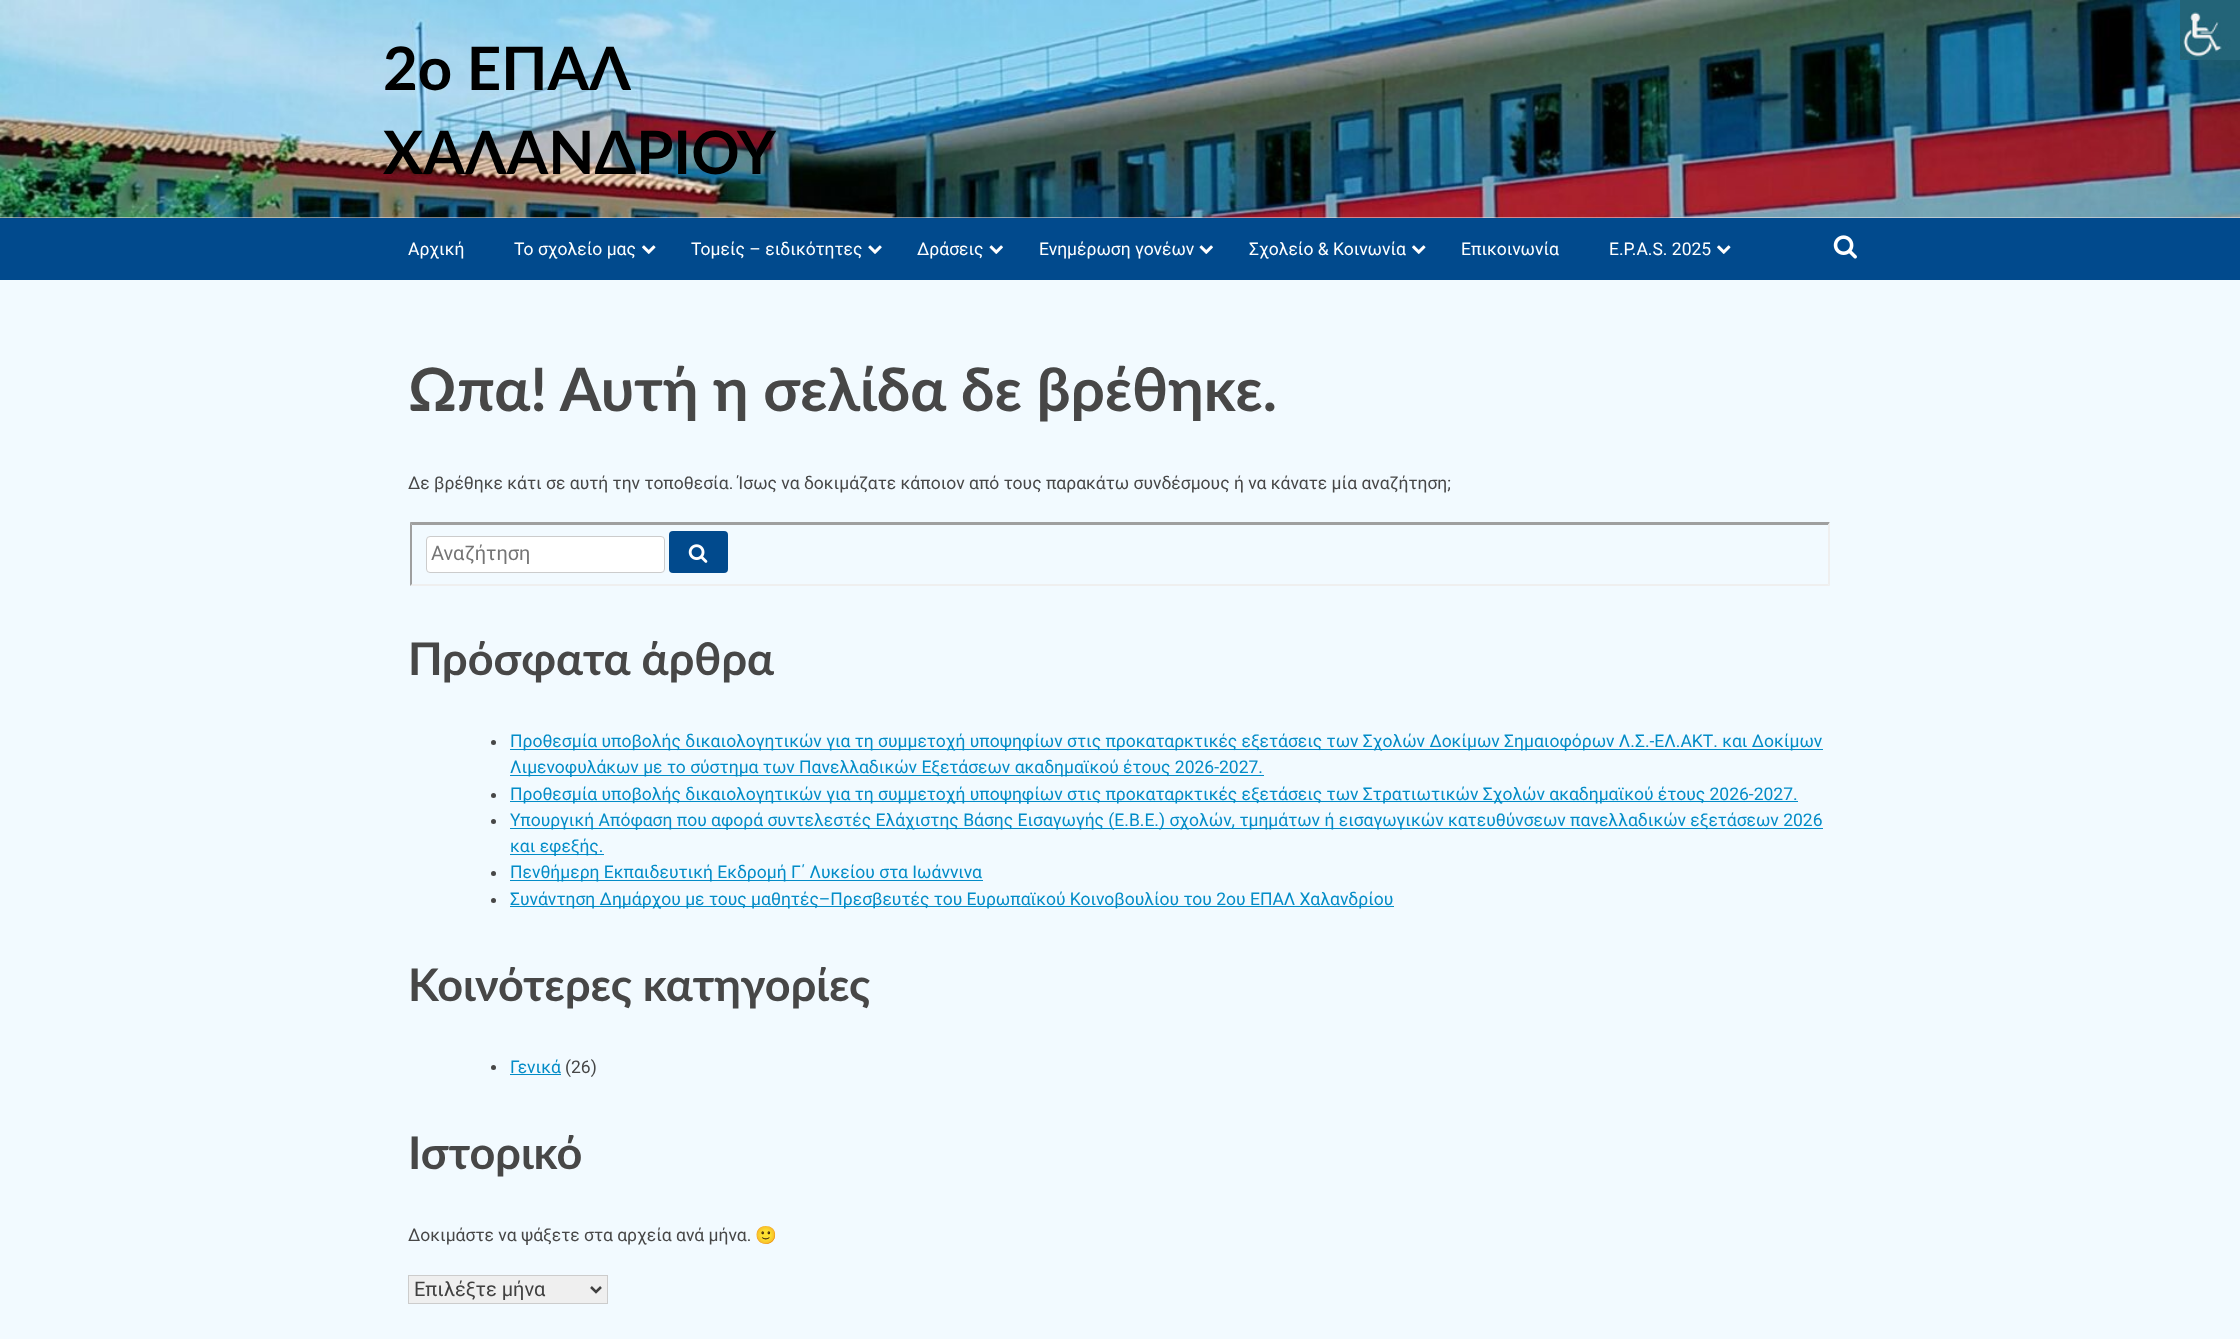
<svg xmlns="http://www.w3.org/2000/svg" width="2240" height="1339">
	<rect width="100%" height="100%" fill="#F2FAFF" />
	<rect x="0" y="217" width="2240" height="1" fill="#FFEDED" />
	<image x="0" y="0" width="2240" height="218" href="assets/img2.png" />
	<image x="2180" y="0" width="60" height="60" href="assets/img1.png" />
	<g font-family="Lato" font-size="60" font-weight="700" fill="#000000">
		<text x="383" y="90">2ο ΕΠΑΛ</text>
		<text x="383" y="174">ΧΑΛΑΝΔΡΙΟΥ</text>
	</g>
	<rect x="0" y="218" width="2240" height="62" fill="#014A8D" />
	<g font-family="Roboto" font-size="17.5" fill="#FFFFFF">
		<text x="408" y="255">Αρχική</text>
		<text x="514" y="255">Το σχολείο μας</text>
	</g>
	<image x="642" y="245" width="14" height="9" href="assets/img3.png" />
	<text x="691" y="255" font-family="Roboto" font-size="17.5" fill="#FFFFFF">Τομείς – ειδικότητες</text>
	<image x="868" y="245" width="14" height="9" href="assets/img4.png" />
	<text x="917" y="255" font-family="Roboto" font-size="17.5" fill="#FFFFFF">Δράσεις</text>
	<image x="989" y="245" width="14" height="9" href="assets/img5.png" />
	<text x="1039" y="255" font-family="Roboto" font-size="17.5" fill="#FFFFFF">Ενημέρωση γονέων</text>
	<image x="1199" y="245" width="14" height="9" href="assets/img5.png" />
	<text x="1249" y="255" font-family="Roboto" font-size="17.5" fill="#FFFFFF">Σχολείο &amp; Κοινωνία</text>
	<image x="1412" y="245" width="14" height="9" href="assets/img3.png" />
	<g font-family="Roboto" font-size="17.5" fill="#FFFFFF">
		<text x="1461" y="255">Επικοινωνία</text>
		<text x="1609" y="255">E.P.A.S. 2025</text>
	</g>
	<image x="1717" y="245" width="14" height="9" href="assets/img3.png" />
	<image x="1833" y="235" width="24" height="24" href="assets/img6.png" />
	<text x="408" y="411" font-family="Lato" font-size="60" font-weight="700" fill="#474747">Ωπα! Αυτή η σελίδα δε βρέθηκε.</text>
	<text x="408" y="489" font-family="Roboto" font-size="17.5" fill="#474747">Δε βρέθηκε κάτι σε αυτή την τοποθεσία. Ίσως να δοκιμάζατε κάποιον από τους παρακάτω συνδέσμους ή να κάνατε μία αναζήτηση;</text>
	<path d="M410 522H1830L1828 525H412Z" fill="#9F9F9F" />
	<path d="M1830 522V586L1828 584V525Z" fill="#EFEFEF" />
	<path d="M1830 586H410L412 584H1828Z" fill="#EFEFEF" />
	<path d="M410 586V522L412 525V584Z" fill="#9F9F9F" />
	<rect x="426.5" y="536.5" width="238" height="36" rx="3.5" fill="#FFFFFF" stroke="#CCCCCC" />
	<text x="431" y="560" font-family="Roboto" font-size="20" fill="#757575">Αναζήτηση</text>
	<rect x="669" y="531" width="59" height="42" rx="4" fill="#014A8D" />
	<image x="688" y="544" width="20" height="19" href="assets/img7.png" />
	<text x="408" y="675" font-family="Lato" font-size="45" font-weight="700" fill="#474747">Πρόσφατα άρθρα</text>
	<circle cx="493.5" cy="742.5" r="2.5" fill="#474747" />
	<rect x="510" y="749" width="1313" height="1" fill="#038CC7" />
	<text x="510" y="747" font-family="Roboto" font-size="17.5" fill="#038CC7">Προθεσμία υποβολής δικαιολογητικών για τη συμμετοχή υποψηφίων στις προκαταρκτικές εξετάσεις των Σχολών Δοκίμων Σημαιοφόρων Λ.Σ.-ΕΛ.ΑΚΤ. και Δοκίμων</text>
	<rect x="510" y="775" width="754" height="1" fill="#038CC7" />
	<text x="510" y="773" font-family="Roboto" font-size="17.5" fill="#038CC7">Λιμενοφυλάκων με το σύστημα των Πανελλαδικών Εξετάσεων ακαδημαϊκού έτους 2026-2027.</text>
	<circle cx="493.5" cy="795.5" r="2.5" fill="#474747" />
	<rect x="510" y="801" width="1288" height="1" fill="#038CC7" />
	<text x="510" y="800" font-family="Roboto" font-size="17.5" fill="#038CC7">Προθεσμία υποβολής δικαιολογητικών για τη συμμετοχή υποψηφίων στις προκαταρκτικές εξετάσεις των Στρατιωτικών Σχολών ακαδημαϊκού έτους 2026-2027.</text>
	<circle cx="493.5" cy="821.5" r="2.5" fill="#474747" />
	<rect x="510" y="828" width="1313" height="1" fill="#038CC7" />
	<text x="510" y="826" font-family="Roboto" font-size="17.5" fill="#038CC7">Υπουργική Απόφαση που αφορά συντελεστές Ελάχιστης Βάσης Εισαγωγής (Ε.Β.Ε.) σχολών, τμημάτων ή εισαγωγικών κατευθύνσεων πανελλαδικών εξετάσεων 2026</text>
	<rect x="510" y="854" width="94" height="1" fill="#038CC7" />
	<text x="510" y="852" font-family="Roboto" font-size="17.5" fill="#038CC7">και εφεξής.</text>
	<circle cx="493.5" cy="873.5" r="2.5" fill="#474747" />
	<rect x="510" y="880" width="473" height="1" fill="#038CC7" />
	<text x="510" y="878" font-family="Roboto" font-size="17.5" fill="#038CC7">Πενθήμερη Εκπαιδευτική Εκδρομή Γ΄ Λυκείου στα Ιωάννινα</text>
	<circle cx="493.5" cy="900.5" r="2.5" fill="#474747" />
	<rect x="510" y="906" width="884" height="1" fill="#038CC7" />
	<text x="510" y="905" font-family="Roboto" font-size="17.5" fill="#038CC7">Συνάντηση Δημάρχου με τους μαθητές–Πρεσβευτές του Ευρωπαϊκού Κοινοβουλίου του 2ου ΕΠΑΛ Χαλανδρίου</text>
	<text x="408" y="1001" font-family="Lato" font-size="45" font-weight="700" fill="#474747">Κοινότερες κατηγορίες</text>
	<circle cx="493.5" cy="1067.5" r="2.5" fill="#474747" />
	<text x="510" y="1073" font-family="Roboto" font-size="17.5" fill="#038CC7">Γενικά</text>
	<rect x="510" y="1074" width="51" height="1" fill="#038CC7" />
	<text x="565" y="1073" font-family="Roboto" font-size="17.5" fill="#474747">(26)</text>
	<text x="408" y="1169" font-family="Lato" font-size="45" font-weight="700" fill="#474747">Ιστορικό</text>
	<text x="408" y="1241" font-family="Roboto" font-size="17.5" fill="#474747">Δοκιμάστε να ψάξετε στα αρχεία ανά μήνα.</text>
	<text x="755" y="1241" font-family="Noto Color Emoji" font-size="17.5" fill="#474747">🙂</text>
	<rect x="408.5" y="1275.5" width="199" height="28" fill="#EFEFEF" stroke="#CCCCCC" />
	<path d="M591 1287L596 1292L601 1287" fill="none" stroke="#404040" stroke-width="2.5" />
	<text x="414" y="1296" font-family="Roboto" font-size="20" fill="#404040">Επιλέξτε μήνα</text>
</svg>
